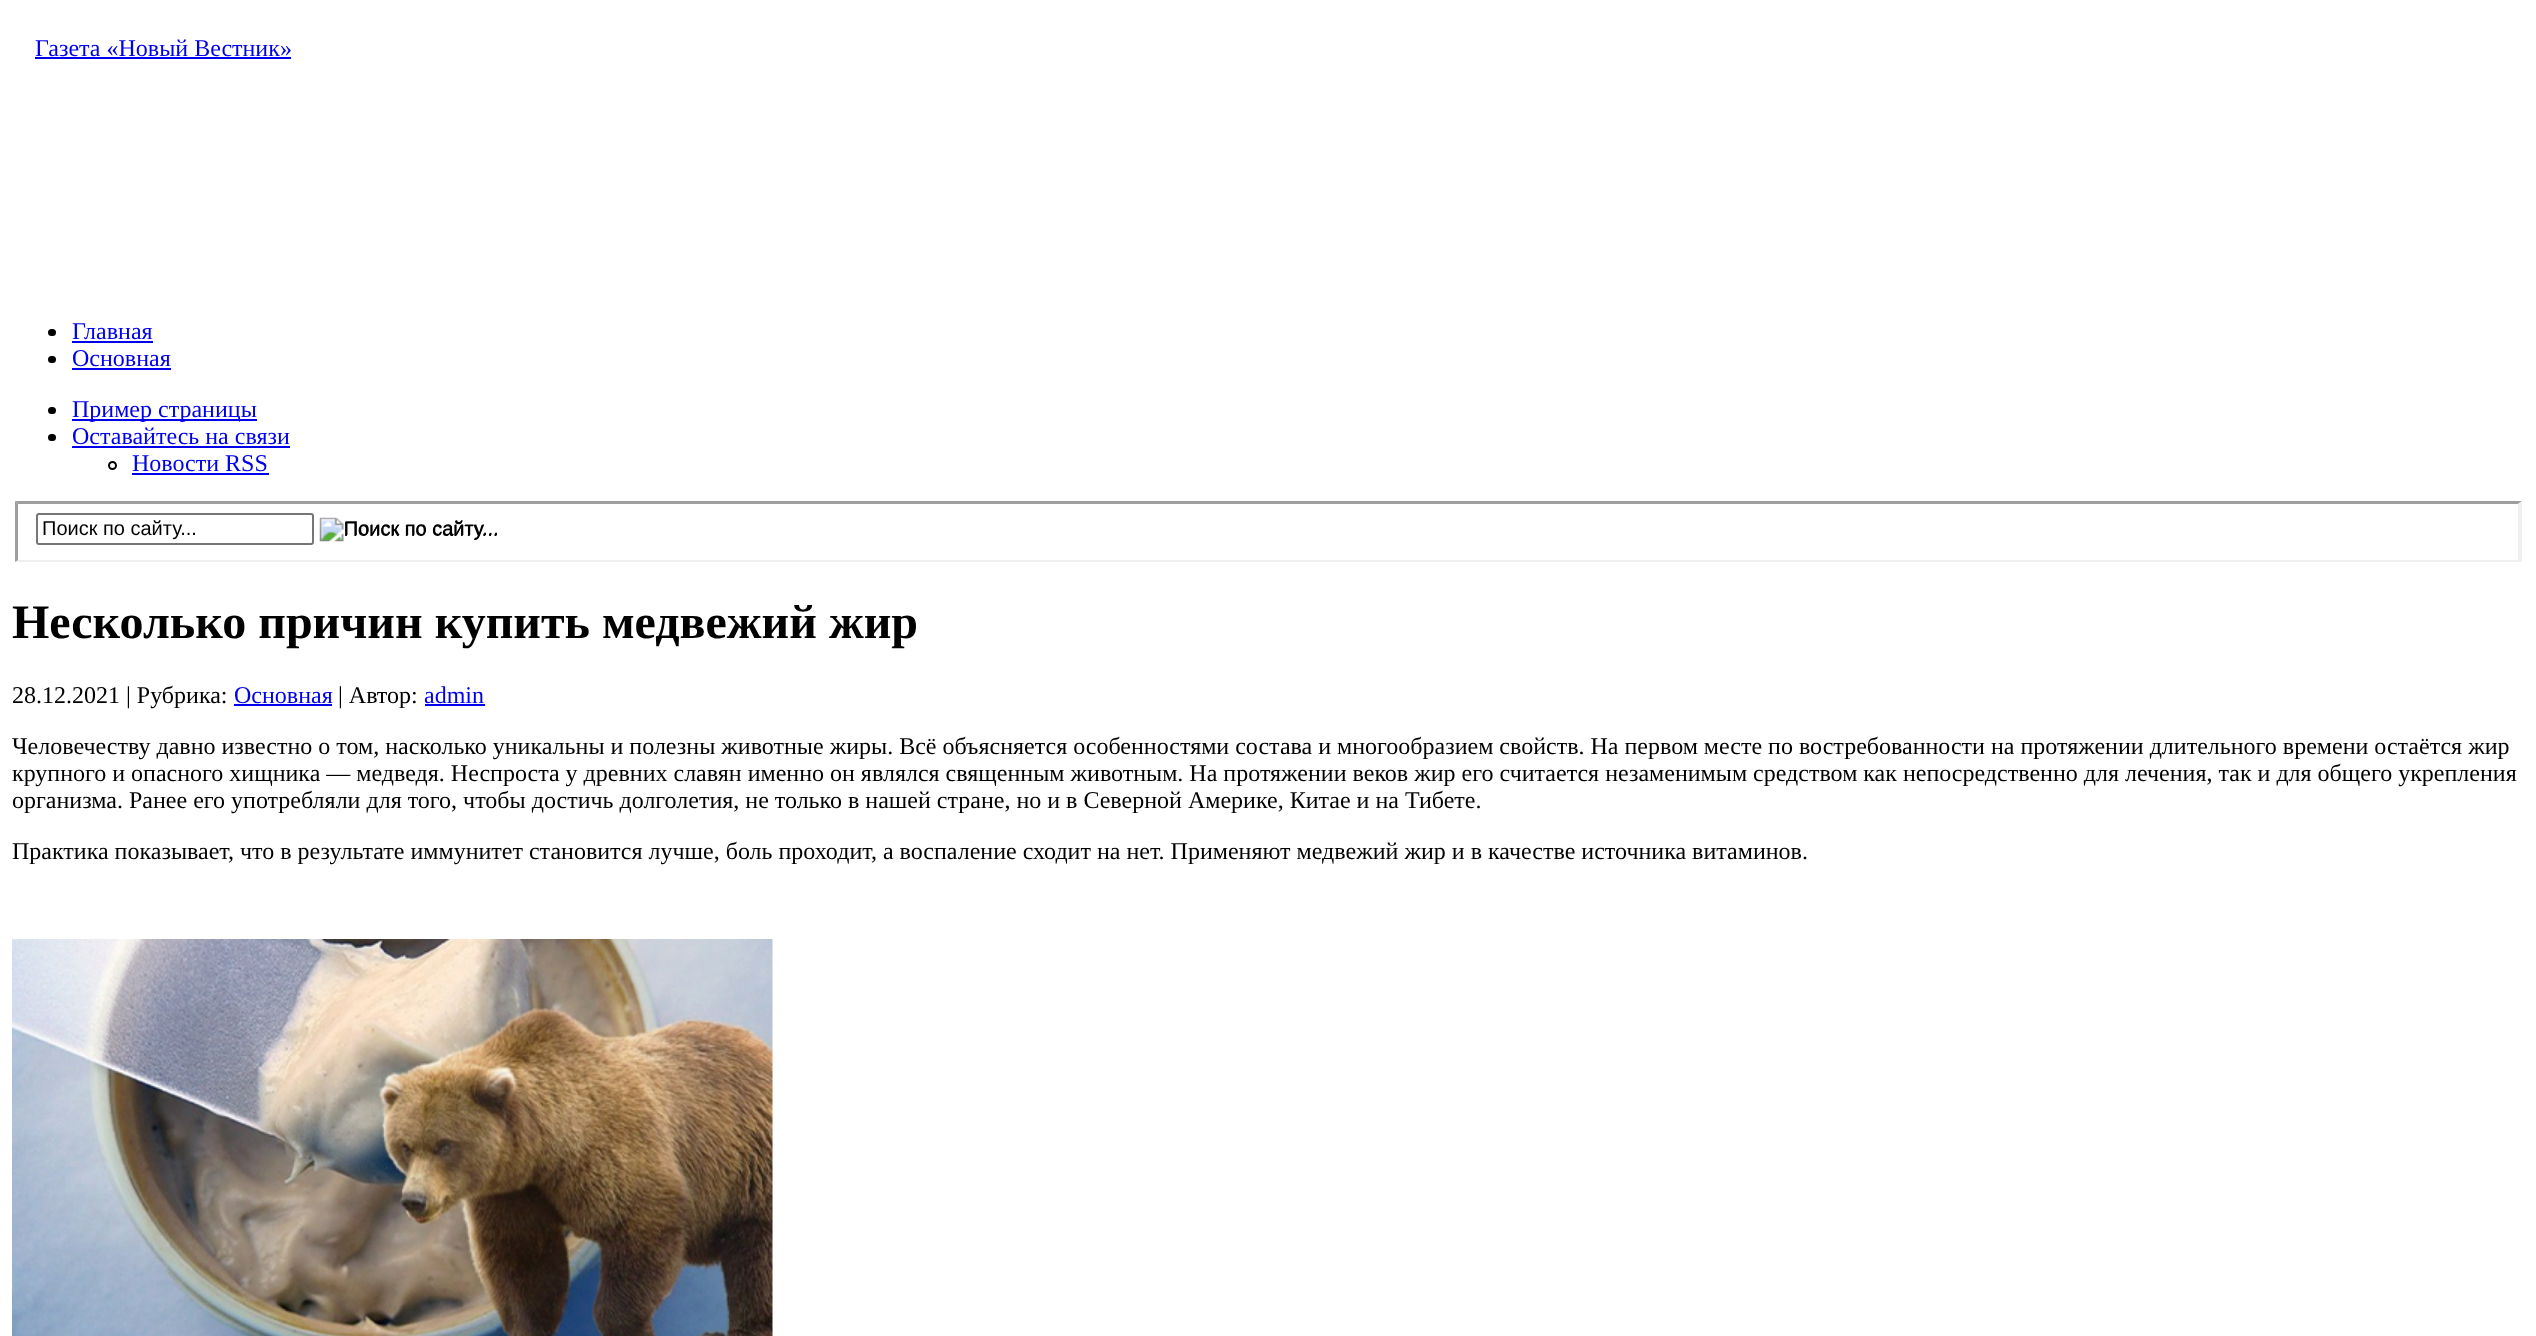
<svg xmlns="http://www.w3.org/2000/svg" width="2536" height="1336">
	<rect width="100%" height="100%" fill="#FFFFFF" />
	<text x="35" y="56" font-family="Liberation Serif" font-size="24" fill="#0000EE">Газета «Новый Вестник»</text>
	<rect x="35" y="57" width="256" height="2" fill="#0000EE" />
	<rect x="48" y="329" width="8" height="7" rx="3.5" fill="#000000" />
	<text x="72" y="339" font-family="Liberation Serif" font-size="24" fill="#0000EE">Главная</text>
	<rect x="72" y="341" width="81" height="2" fill="#0000EE" />
	<rect x="48" y="356" width="8" height="7" rx="3.5" fill="#000000" />
	<text x="72" y="366" font-family="Liberation Serif" font-size="24" fill="#0000EE">Основная</text>
	<rect x="72" y="368" width="99" height="2" fill="#0000EE" />
	<rect x="48" y="407" width="8" height="7" rx="3.5" fill="#000000" />
	<rect x="72" y="419" width="185" height="2" fill="#0000EE" />
	<text x="72" y="417" font-family="Liberation Serif" font-size="24" fill="#0000EE">Пример страницы</text>
	<rect x="48" y="434" width="8" height="7" rx="3.5" fill="#000000" />
	<text x="72" y="444" font-family="Liberation Serif" font-size="24" fill="#0000EE">Оставайтесь на связи</text>
	<rect x="72" y="446" width="218" height="2" fill="#0000EE" />
	<circle cx="112.5" cy="465.5" r="3.5" fill="none" stroke="#000000" stroke-width="2" />
	<text x="132" y="471" font-family="Liberation Serif" font-size="24" fill="#0000EE">Новости RSS</text>
	<rect x="132" y="473" width="137" height="2" fill="#0000EE" />
	<path d="M15 501H2522L2518 504H18Z" fill="#9F9F9F" />
	<path d="M2522 501V562L2518 560V504Z" fill="#EFEFEF" />
	<path d="M2522 562H15L18 560H2518Z" fill="#EFEFEF" />
	<path d="M15 562V501L18 504V560Z" fill="#9F9F9F" />
	<rect x="37" y="514" width="276" height="30" rx="2" fill="none" stroke="#767676" stroke-width="2" />
	<text x="42" y="535" font-family="Liberation Sans" font-size="20" fill="#000000">Поиск по сайту...</text>
	<image x="319" y="517" width="178" height="25" href="assets/img1.png" />
	<text x="344" y="535" font-family="Liberation Sans" font-size="20" fill="#000000">Поиск по сайту...</text>
	<text x="12" y="638" font-family="Liberation Serif" font-size="48" font-weight="700" fill="#000000">Несколько причин купить медвежий жир</text>
	<text x="12" y="703" font-family="Liberation Serif" font-size="24" fill="#000000">28.12.2021 | Рубрика:</text>
	<text x="234" y="703" font-family="Liberation Serif" font-size="24" fill="#0000EE">Основная</text>
	<rect x="234" y="704" width="98" height="2" fill="#0000EE" />
	<text x="338" y="703" font-family="Liberation Serif" font-size="24" fill="#000000">| Автор:</text>
	<text x="424" y="703" font-family="Liberation Serif" font-size="24" fill="#0000EE">admin</text>
	<rect x="425" y="704" width="60" height="2" fill="#0000EE" />
	<g font-family="Liberation Serif" font-size="24" fill="#000000">
		<text x="12" y="754">Человечеству давно известно о том, насколько уникальны и полезны животные жиры. Всё объясняется особенностями состава и многообразием свойств. На первом месте по востребованности на протяжении длительного времени остаётся жир</text>
		<text x="12" y="781">крупного и опасного хищника — медведя. Неспроста у древних славян именно он являлся священным животным. На протяжении веков жир его считается незаменимым средством как непосредственно для лечения, так и для общего укрепления</text>
		<text x="12" y="808">организма. Ранее его употребляли для того, чтобы достичь долголетия, не только в нашей стране, но и в Северной Америке, Китае и на Тибете.</text>
		<text x="12" y="859">Практика показывает, что в результате иммунитет становится лучше, боль проходит, а воспаление сходит на нет. Применяют медвежий жир и в качестве источника витаминов.</text>
	</g>
	<image x="12" y="939" width="761" height="397" href="assets/img2.png" />
</svg>
